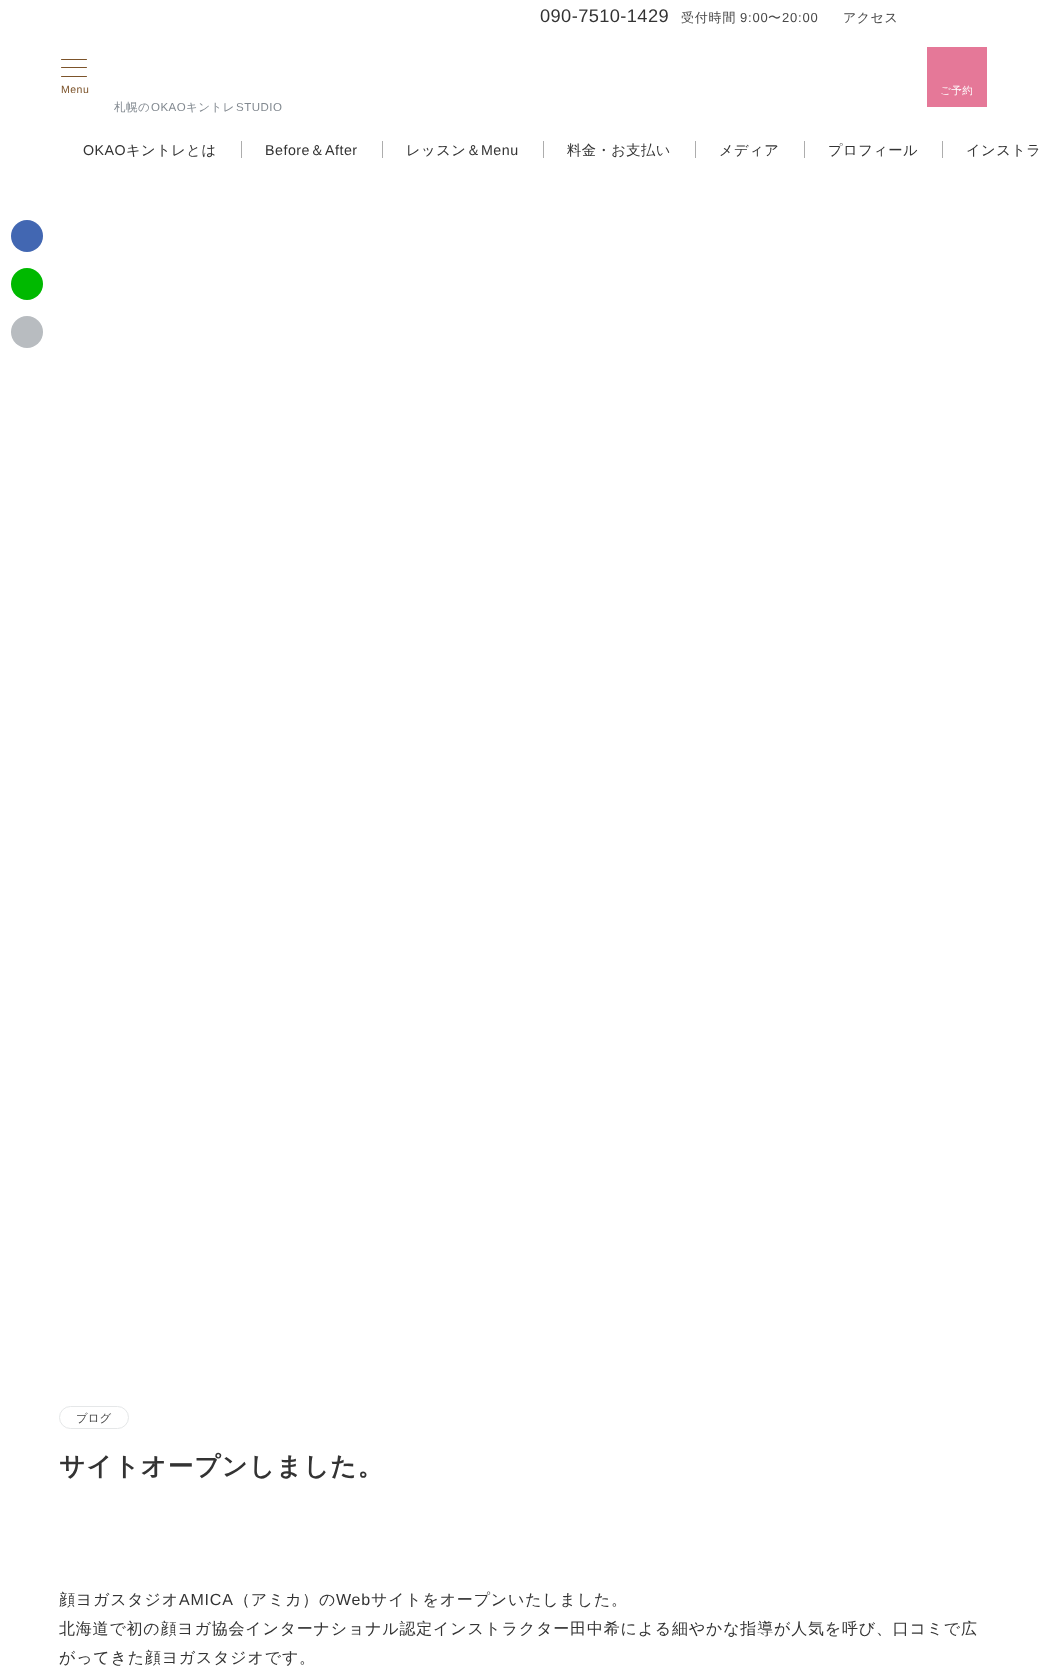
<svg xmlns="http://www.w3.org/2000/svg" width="1046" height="1677">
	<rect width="100%" height="100%" fill="#FFFFFF" />
	<text x="540" y="22" font-family="Liberation Sans" font-size="18.25" letter-spacing="0.4" fill="#333333">090-7510-1429</text>
	<text x="681" y="22" font-family="WenQuanYi Zen Hei" font-size="13" font-weight="500" letter-spacing="0.8" fill="#484848">受付時間</text>
	<text x="740" y="22" font-family="Liberation Sans" font-size="13" letter-spacing="0.8" fill="#484848">9:00</text>
	<text x="768" y="22" font-family="WenQuanYi Zen Hei" font-size="13" font-weight="500" letter-spacing="0.8" fill="#484848">〜</text>
	<text x="782" y="22" font-family="Liberation Sans" font-size="13" letter-spacing="0.8" fill="#484848">20:00</text>
	<text x="843" y="22" font-family="WenQuanYi Zen Hei" font-size="13" font-weight="500" letter-spacing="0.5" fill="#484848">アクセス</text>
	<rect x="61" y="59" width="26" height="1" rx="0.5" fill="#7C532A" />
	<rect x="61" y="67" width="26" height="1" rx="0.5" fill="#7C532A" />
	<rect x="61" y="76" width="26" height="1" rx="0.5" fill="#7C532A" />
	<text x="61" y="93" font-family="Liberation Sans" font-size="10.5" letter-spacing="0.5" fill="#7C532A">Menu</text>
	<rect x="927" y="47" width="60" height="60" fill="#E57898" />
	<text x="940" y="94" font-family="WenQuanYi Zen Hei" font-size="10.5" font-weight="500" letter-spacing="0.5" fill="#FFFFFF">ご予約</text>
	<text x="114" y="111" font-family="WenQuanYi Zen Hei" font-size="11.5" font-weight="500" letter-spacing="0.5" fill="#828990">札幌の</text>
	<text x="151" y="111" font-family="Liberation Sans" font-size="11.5" letter-spacing="0.5" fill="#828990">OKAO</text>
	<text x="186" y="111" font-family="WenQuanYi Zen Hei" font-size="11.5" font-weight="500" letter-spacing="0.5" fill="#828990">キントレ</text>
	<text x="236" y="111" font-family="Liberation Sans" font-size="11.5" letter-spacing="0.5" fill="#828990">STUDIO</text>
	<text x="83" y="155" font-family="Liberation Sans" font-size="14.25" letter-spacing="0.5" fill="#333333">OKAO</text>
	<text x="126" y="155" font-family="WenQuanYi Zen Hei" font-size="14.25" font-weight="500" letter-spacing="0.5" fill="#333333">キントレとは</text>
	<rect x="241" y="141" width="1" height="17" fill="#ADADAD" />
	<text x="265" y="155" font-family="Liberation Sans" font-size="14.25" letter-spacing="0.5" fill="#333333">Before</text>
	<text x="310" y="155" font-family="WenQuanYi Zen Hei" font-size="14.25" font-weight="500" letter-spacing="0.5" fill="#333333">＆</text>
	<text x="325" y="155" font-family="Liberation Sans" font-size="14.25" letter-spacing="0.5" fill="#333333">After</text>
	<rect x="382" y="141" width="1" height="17" fill="#ADADAD" />
	<text x="406" y="155" font-family="WenQuanYi Zen Hei" font-size="14.25" font-weight="500" letter-spacing="0.5" fill="#333333">レッスン＆</text>
	<text x="481" y="155" font-family="Liberation Sans" font-size="14.25" letter-spacing="0.5" fill="#333333">Menu</text>
	<rect x="543" y="141" width="1" height="17" fill="#ADADAD" />
	<text x="567" y="155" font-family="WenQuanYi Zen Hei" font-size="14.25" font-weight="500" letter-spacing="0.5" fill="#333333">料金・お支払い</text>
	<rect x="695" y="141" width="1" height="17" fill="#ADADAD" />
	<text x="719" y="155" font-family="WenQuanYi Zen Hei" font-size="14.25" font-weight="500" letter-spacing="0.5" fill="#333333">メディア</text>
	<rect x="804" y="141" width="1" height="17" fill="#ADADAD" />
	<text x="828" y="155" font-family="WenQuanYi Zen Hei" font-size="14.25" font-weight="500" letter-spacing="0.5" fill="#333333">プロフィール</text>
	<rect x="942" y="141" width="1" height="17" fill="#ADADAD" />
	<text x="966" y="155" font-family="WenQuanYi Zen Hei" font-size="14.25" font-weight="500" letter-spacing="0.5" fill="#333333">インストラ</text>
	<circle cx="27" cy="236" r="16" fill="#4267B2" />
	<circle cx="27" cy="284" r="16" fill="#00B900" />
	<circle cx="27" cy="332" r="16" fill="#B8BCC0" />
	<rect x="59.5" y="1406.5" width="69" height="22" rx="11" fill="none" stroke="#E5E7E8" />
	<text x="76" y="1422" font-family="WenQuanYi Zen Hei" font-size="11.5" font-weight="500" fill="#484848">ブログ</text>
	<text x="59" y="1475" font-family="WenQuanYi Zen Hei" font-size="25.6" font-weight="700" letter-spacing="1" fill="#333333">サイトオープンしました。</text>
	<text x="59" y="1605" font-family="WenQuanYi Zen Hei" font-size="16" font-weight="500" letter-spacing="0.8" fill="#333333">顔ヨガスタジオ</text>
	<text x="179" y="1605" font-family="Liberation Sans" font-size="16" letter-spacing="0.8" fill="#333333">AMICA</text>
	<text x="234" y="1605" font-family="WenQuanYi Zen Hei" font-size="16" font-weight="500" letter-spacing="0.8" fill="#333333">（アミカ）の</text>
	<text x="336" y="1605" font-family="Liberation Sans" font-size="16" letter-spacing="0.8" fill="#333333">Web</text>
	<g font-family="WenQuanYi Zen Hei" font-size="16" font-weight="500" letter-spacing="0.8" fill="#333333">
		<text x="371" y="1605">サイトをオープンいたしました。</text>
		<text x="59" y="1634">北海道で初の顔ヨガ協会インターナショナル認定インストラクター田中希による細やかな指導が人気を呼び、口コミで広</text>
		<text x="59" y="1663">がってきた顔ヨガスタジオです。</text>
	</g>
</svg>
